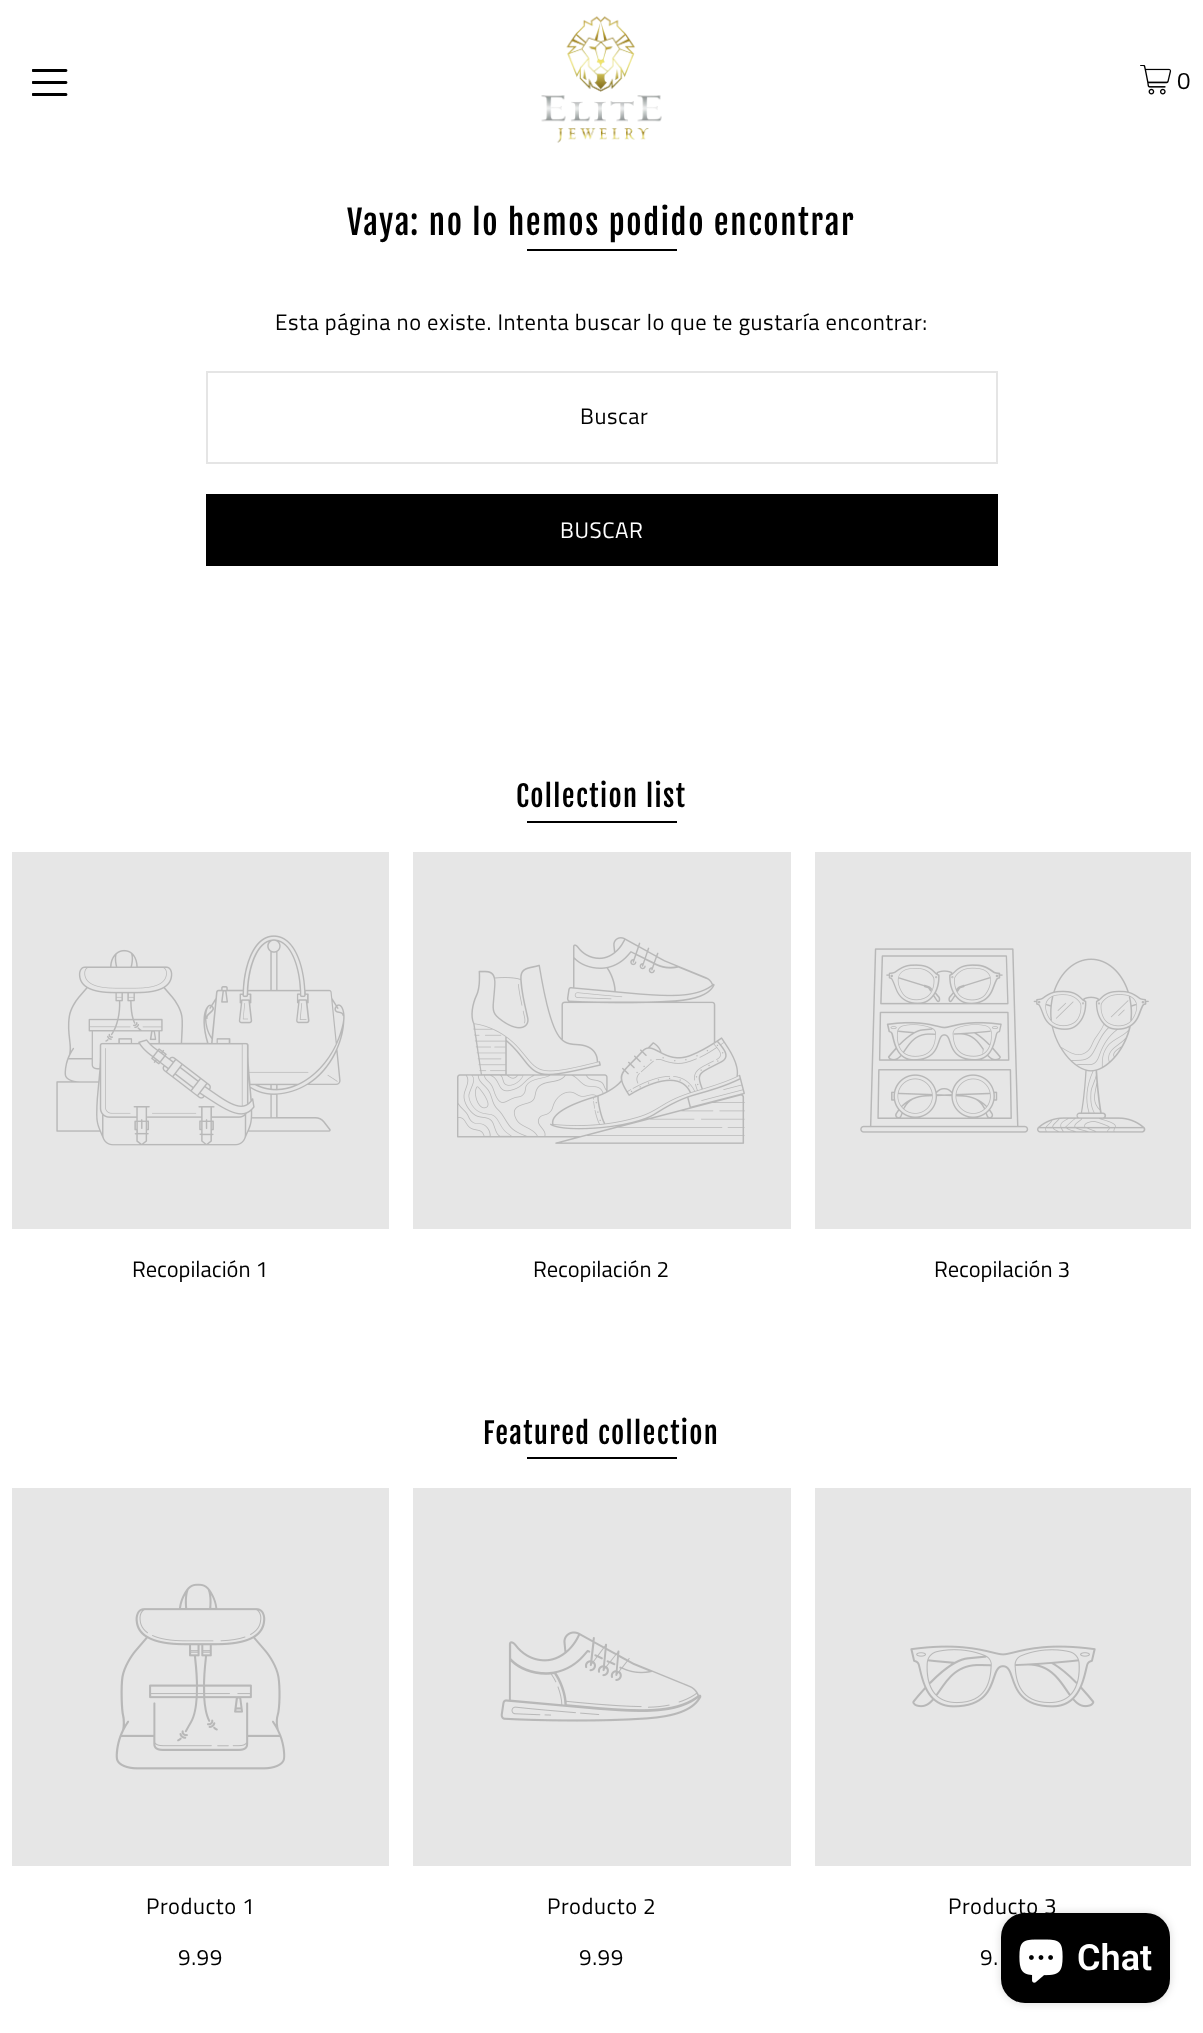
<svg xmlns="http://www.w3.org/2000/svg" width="1203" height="2033">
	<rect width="100%" height="100%" fill="#FFFFFF" />
	<image x="32" y="69" width="36" height="27" href="assets/img1.png" />
	<image x="541" y="16" width="121" height="127" href="assets/img2.png" />
	<image x="1140" y="65" width="32" height="30" href="assets/img3.png" />
	<text x="1177" y="89" font-family="Titillium Web" font-size="24" letter-spacing="0.55" fill="#000000">0</text>
	<text x="347" y="235" font-family="Fjalla One" font-size="33" letter-spacing="1.65" fill="#000000">Vaya: no lo hemos podido encontrar</text>
	<rect x="527" y="249" width="150" height="2" fill="#000000" />
	<text x="275" y="330" font-family="Titillium Web" font-size="22.5" letter-spacing="0.55" fill="#000000">Esta página no existe. Intenta buscar lo que te gustaría encontrar:</text>
	<rect x="207" y="372" width="790" height="91" fill="none" stroke="#E5E5E5" stroke-width="2" />
	<text x="580" y="424" font-family="Titillium Web" font-size="22.5" letter-spacing="0.55" fill="#000000">Buscar</text>
	<rect x="206" y="494" width="792" height="72" fill="#000000" />
	<text x="560" y="538" font-family="Titillium Web" font-size="22.5" letter-spacing="0.55" fill="#FFFFFF">BUSCAR</text>
	<text x="516" y="807" font-family="Fjalla One" font-size="28.5" letter-spacing="1.4" fill="#000000">Collection list</text>
	<rect x="527" y="821" width="150" height="2" fill="#000000" />
	<rect x="12" y="852" width="377" height="377" fill="#E6E6E6" />
	<image x="56" y="935" width="289" height="211" href="assets/img4.png" />
	<text x="132" y="1277" font-family="Titillium Web" font-size="22.5" fill="#000000">Recopilación 1</text>
	<rect x="413" y="852" width="378" height="377" fill="#E6E6E6" />
	<image x="457" y="937" width="288" height="207" href="assets/img5.png" />
	<text x="533" y="1277" font-family="Titillium Web" font-size="22.5" fill="#000000">Recopilación 2</text>
	<rect x="815" y="852" width="376" height="377" fill="#E6E6E6" />
	<image x="860" y="948" width="289" height="185" href="assets/img6.png" />
	<text x="934" y="1277" font-family="Titillium Web" font-size="22.5" fill="#000000">Recopilación 3</text>
	<text x="483" y="1444" font-family="Fjalla One" font-size="28.5" letter-spacing="1.4" fill="#000000">Featured collection</text>
	<rect x="527" y="1457" width="150" height="2" fill="#000000" />
	<rect x="12" y="1488" width="377" height="378" fill="#E6E6E6" />
	<image x="115" y="1583" width="171" height="187" href="assets/img7.png" />
	<g font-family="Titillium Web" font-size="22.5" letter-spacing="0.55" fill="#000000">
		<text x="146" y="1914">Producto 1</text>
		<text x="178" y="1965">9.99</text>
	</g>
	<rect x="413" y="1488" width="378" height="378" fill="#E6E6E6" />
	<image x="500" y="1631" width="202" height="91" href="assets/img8.png" />
	<g font-family="Titillium Web" font-size="22.5" letter-spacing="0.55" fill="#000000">
		<text x="547" y="1914">Producto 2</text>
		<text x="579" y="1965">9.99</text>
	</g>
	<rect x="815" y="1488" width="376" height="378" fill="#E6E6E6" />
	<image x="910" y="1645" width="186" height="63" href="assets/img9.png" />
	<g font-family="Titillium Web" font-size="22.5" letter-spacing="0.55" fill="#000000">
		<text x="948" y="1914">Producto 3</text>
		<text x="980" y="1965">9.</text>
	</g>
	<rect x="1001" y="1913" width="169" height="90" rx="24" fill="#000000" fill-opacity="0.15" filter="blur(4px)" />
	<rect x="1001" y="1913" width="169" height="90" rx="24" fill="#000000" />
	<image x="1019" y="1939" width="44" height="44" href="assets/img10.png" />
	<text x="1077" y="1970" font-family="Roboto" font-size="36" font-weight="600" fill="#FFFFFF">Chat</text>
</svg>
